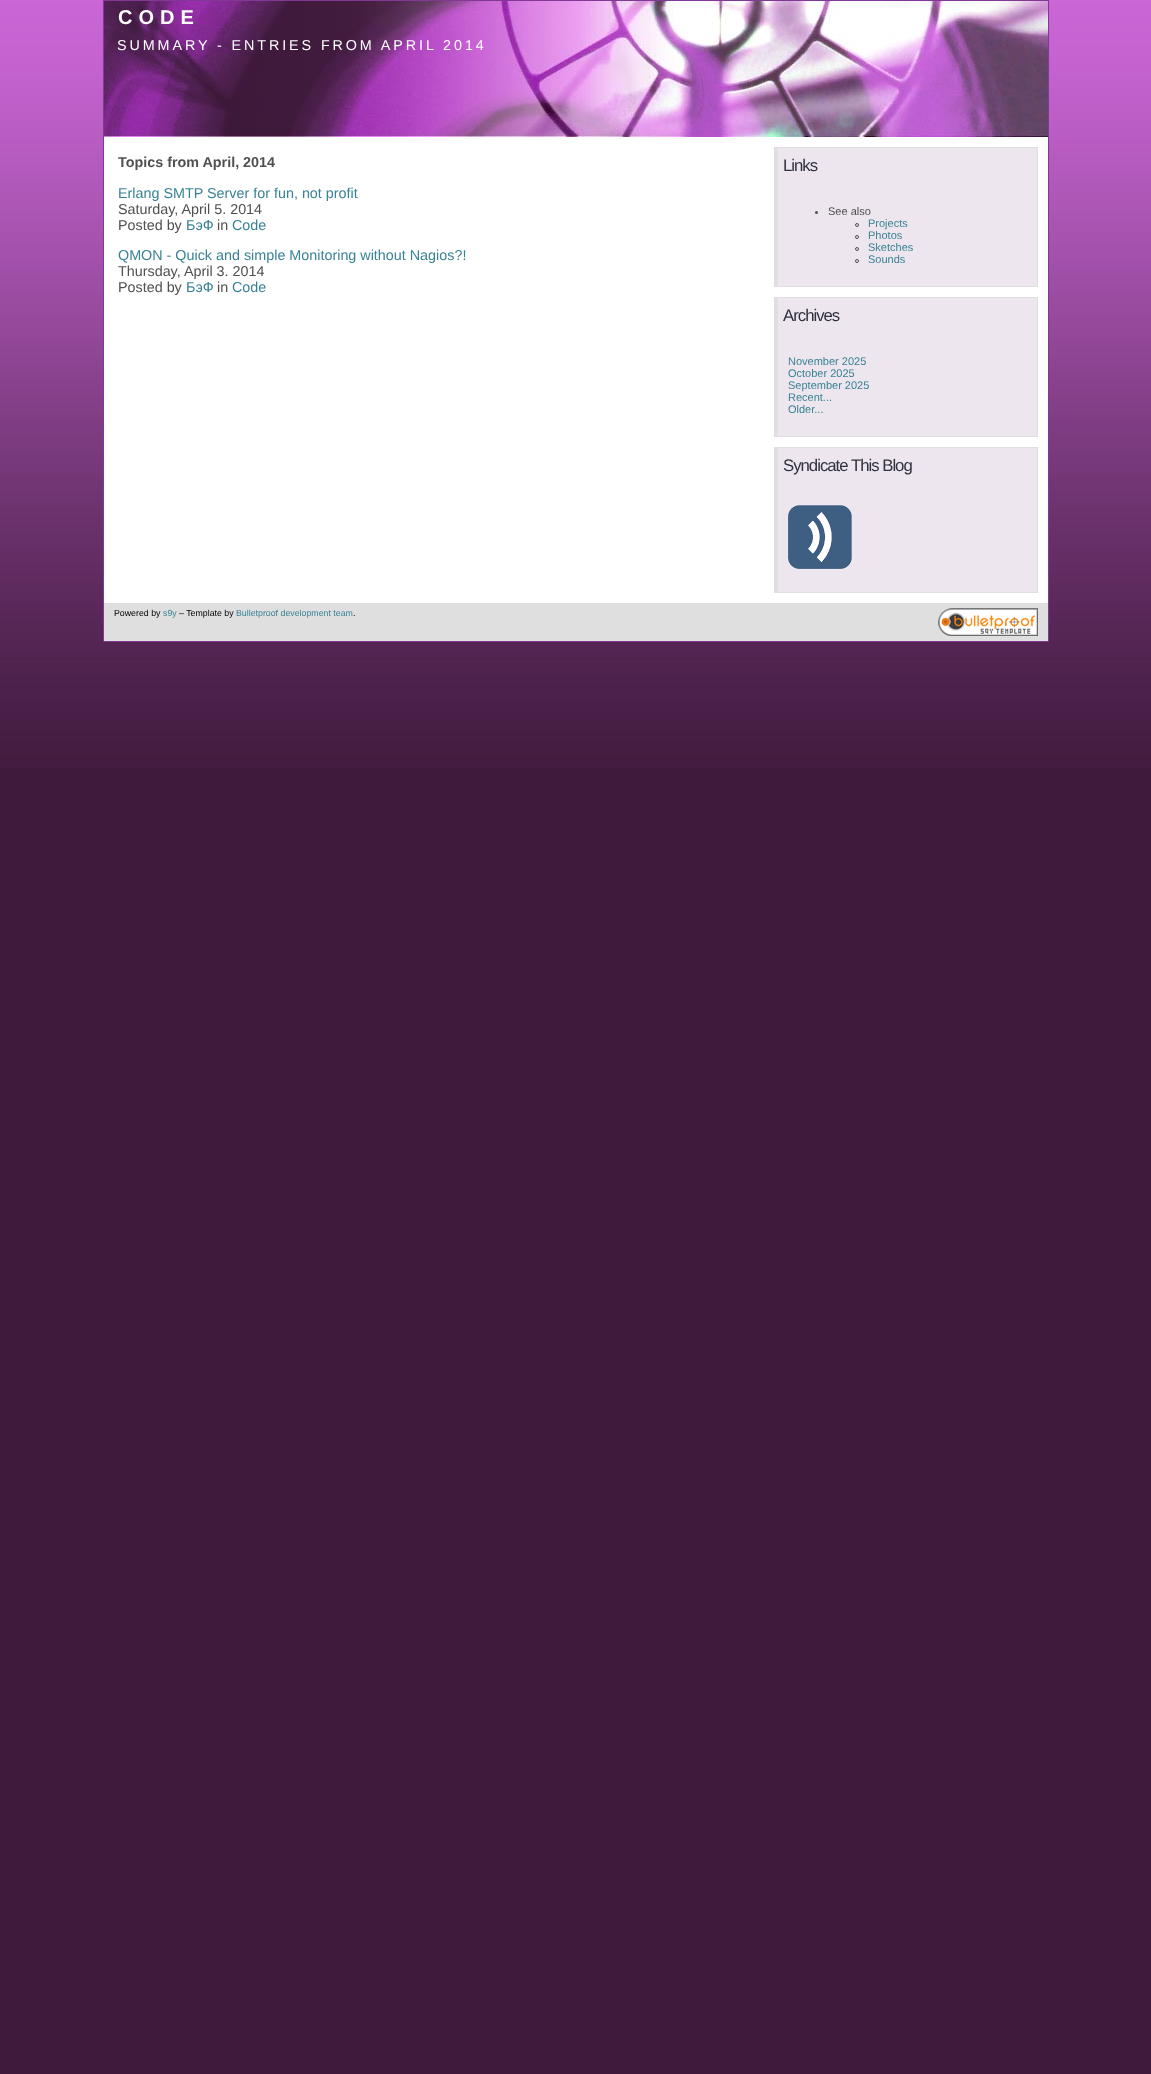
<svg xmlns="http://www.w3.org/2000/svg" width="1151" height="2074">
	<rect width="100%" height="100%" fill="#3F1A3C" />
	<image x="0" y="0" width="1151" height="768" href="assets/img1.png" />
	<rect x="104" y="137" width="944" height="466" fill="#FFFFFF" />
	<rect x="103.5" y="0.5" width="945" height="641" fill="none" stroke="#823995" />
	<image x="104" y="1" width="944" height="136" href="assets/img2.png" />
	<text x="118" y="24" font-family="Liberation Sans" font-size="20" font-weight="700" letter-spacing="6" fill="#FFFFFF">CODE</text>
	<text x="117" y="50" font-family="Liberation Sans" font-size="14.35" letter-spacing="2.9" fill="#FFFFFF">SUMMARY - ENTRIES FROM APRIL 2014</text>
	<text x="118" y="167" font-family="Liberation Sans" font-size="14.35" font-weight="700" fill="#505050">Topics from April, 2014</text>
	<text x="118" y="198" font-family="Liberation Sans" font-size="14.35" fill="#398295">Erlang SMTP Server for fun, not profit</text>
	<g font-family="Liberation Sans" font-size="14.35" fill="#505050">
		<text x="118" y="214">Saturday, April 5. 2014</text>
		<text x="118" y="230">Posted by</text>
	</g>
	<text x="186" y="230" font-family="Liberation Sans" font-size="14.35" fill="#398295">БэФ</text>
	<text x="217" y="230" font-family="Liberation Sans" font-size="14.35" fill="#505050">in</text>
	<g font-family="Liberation Sans" font-size="14.35" fill="#398295">
		<text x="232" y="230">Code</text>
		<text x="118" y="260">QMON - Quick and simple Monitoring without Nagios?!</text>
	</g>
	<g font-family="Liberation Sans" font-size="14.35" fill="#505050">
		<text x="118" y="276">Thursday, April 3. 2014</text>
		<text x="118" y="292">Posted by</text>
	</g>
	<text x="186" y="292" font-family="Liberation Sans" font-size="14.35" fill="#398295">БэФ</text>
	<text x="217" y="292" font-family="Liberation Sans" font-size="14.35" fill="#505050">in</text>
	<text x="232" y="292" font-family="Liberation Sans" font-size="14.35" fill="#398295">Code</text>
	<rect x="778" y="148" width="259" height="138" fill="#EDE6EE" />
	<rect x="774" y="147" width="264" height="1" fill="#DFDFDF" />
	<rect x="1037" y="147" width="1" height="140" fill="#DFDFDF" />
	<rect x="774" y="147" width="4" height="37" fill="#DFDFDF" />
	<text x="783" y="171" font-family="Liberation Sans" font-size="16.75" letter-spacing="-1" fill="#30303F">Links</text>
	<rect x="774" y="286" width="264" height="1" fill="#DFDFDF" />
	<rect x="774" y="184" width="4" height="103" fill="#DFDFDF" />
	<circle cx="816.5" cy="212.5" r="1.5" fill="#505050" />
	<text x="828" y="215" font-family="Liberation Sans" font-size="11" fill="#505050">See also</text>
	<circle cx="857" cy="225" r="1.5" fill="none" stroke="#505050" />
	<text x="868" y="227" font-family="Liberation Sans" font-size="11" fill="#398295">Projects</text>
	<circle cx="857" cy="237" r="1.5" fill="none" stroke="#505050" />
	<text x="868" y="239" font-family="Liberation Sans" font-size="11" fill="#398295">Photos</text>
	<circle cx="857" cy="249" r="1.5" fill="none" stroke="#505050" />
	<text x="868" y="251" font-family="Liberation Sans" font-size="11" fill="#398295">Sketches</text>
	<circle cx="857" cy="261" r="1.5" fill="none" stroke="#505050" />
	<text x="868" y="263" font-family="Liberation Sans" font-size="11" fill="#398295">Sounds</text>
	<rect x="778" y="298" width="259" height="138" fill="#EDE6EE" />
	<rect x="774" y="297" width="264" height="1" fill="#DFDFDF" />
	<rect x="1037" y="297" width="1" height="140" fill="#DFDFDF" />
	<rect x="774" y="297" width="4" height="37" fill="#DFDFDF" />
	<text x="783" y="321" font-family="Liberation Sans" font-size="16.75" letter-spacing="-1" fill="#30303F">Archives</text>
	<rect x="774" y="436" width="264" height="1" fill="#DFDFDF" />
	<rect x="774" y="334" width="4" height="103" fill="#DFDFDF" />
	<g font-family="Liberation Sans" font-size="11" fill="#398295">
		<text x="788" y="365">November 2025</text>
		<text x="788" y="377">October 2025</text>
		<text x="788" y="389">September 2025</text>
		<text x="788" y="401">Recent...</text>
		<text x="788" y="413">Older...</text>
	</g>
	<rect x="778" y="448" width="259" height="144" fill="#EDE6EE" />
	<rect x="774" y="447" width="264" height="1" fill="#DFDFDF" />
	<rect x="1037" y="447" width="1" height="146" fill="#DFDFDF" />
	<rect x="774" y="447" width="4" height="37" fill="#DFDFDF" />
	<text x="783" y="471" font-family="Liberation Sans" font-size="16.75" letter-spacing="-1" fill="#30303F">Syndicate This Blog</text>
	<rect x="774" y="592" width="264" height="1" fill="#DFDFDF" />
	<rect x="774" y="484" width="4" height="109" fill="#DFDFDF" />
	<image x="788" y="505" width="64" height="64" href="assets/img3.png" />
	<rect x="104" y="603" width="944" height="38" fill="#DFDFDF" />
	<text x="114" y="616" font-family="Liberation Sans" font-size="8.8" fill="#000000">Powered by</text>
	<text x="163" y="616" font-family="Liberation Sans" font-size="8.8" fill="#398295">s9y</text>
	<text x="179" y="616" font-family="Liberation Sans" font-size="8.8" fill="#000000">– Template by</text>
	<text x="236" y="616" font-family="Liberation Sans" font-size="8.8" fill="#398295">Bulletproof development team</text>
	<text x="353" y="616" font-family="Liberation Sans" font-size="8.8" fill="#000000">.</text>
	<image x="938" y="608" width="100" height="28" href="assets/img4.png" />
</svg>
